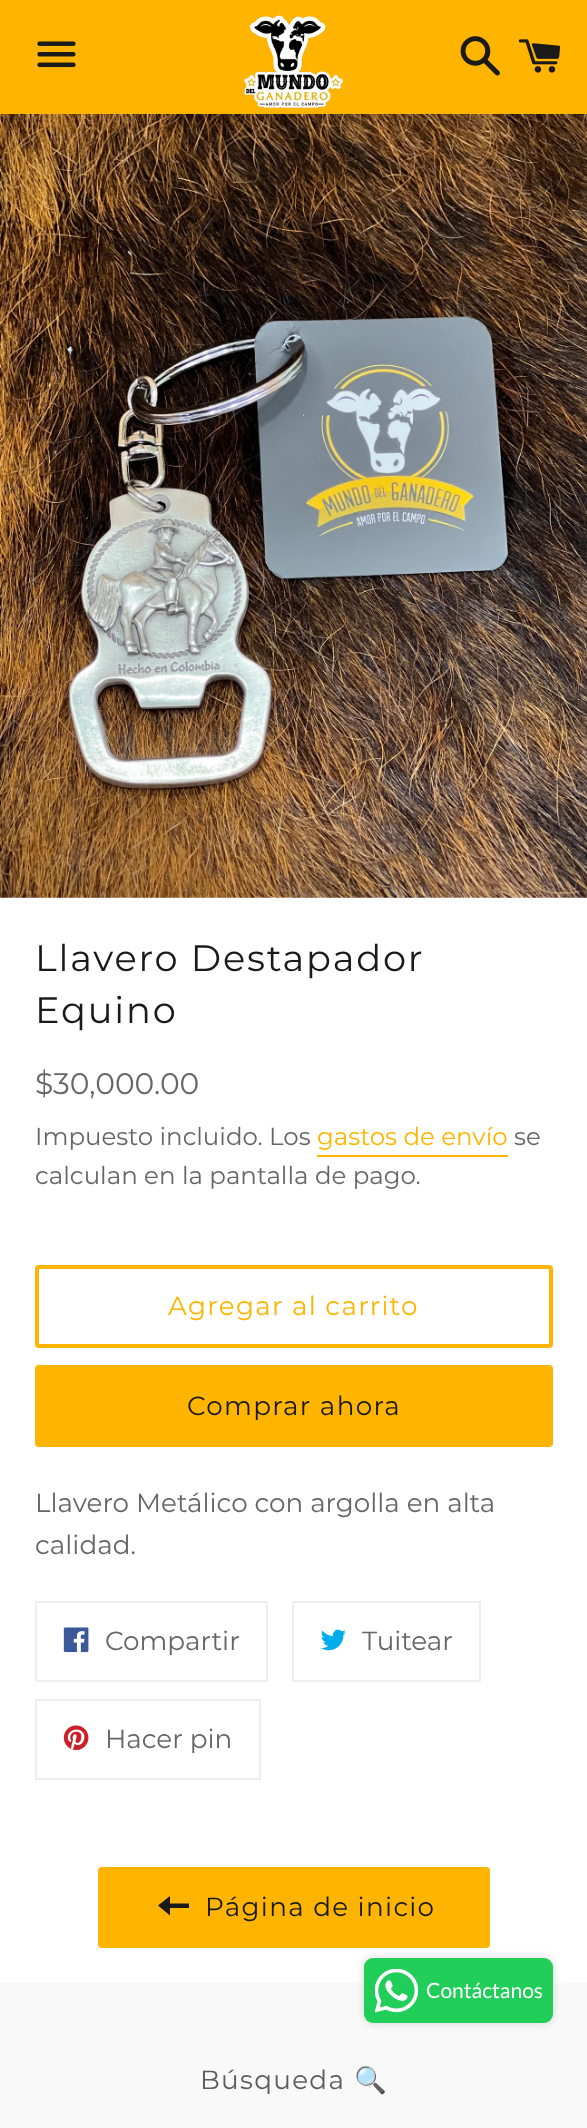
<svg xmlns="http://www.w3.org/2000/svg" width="587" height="2128">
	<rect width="100%" height="100%" fill="#FFFFFF" />
	<rect x="0" y="0" width="587" height="114" fill="#FFB400" />
	<image x="37" y="41" width="39" height="27" href="assets/img1.png" />
	<image x="244" y="15" width="99" height="94" href="assets/img2.png" />
	<image x="460" y="36" width="40" height="40" href="assets/img3.png" />
	<image x="518" y="39" width="43" height="34" href="assets/img4.png" />
	<image x="0" y="114" width="587" height="784" href="assets/img5.png" />
	<g font-family="Montserrat" font-size="36.75" font-weight="100" letter-spacing="1.8" fill="#1A1A1A">
		<text x="35" y="971">Llavero Destapador</text>
		<text x="35" y="1023">Equino</text>
	</g>
	<text x="35" y="1094" font-family="Montserrat" font-size="29.75" font-weight="100" fill="#666666">$30,000.00</text>
	<text x="35" y="1145" font-family="Montserrat" font-size="24.5" font-weight="100" fill="#666666">Impuesto incluido. Los</text>
	<text x="317" y="1145" font-family="Montserrat" font-size="24.5" font-weight="100" fill="#FFB400">gastos de envío</text>
	<rect x="317" y="1155" width="191" height="2" fill="#FFB400" />
	<g font-family="Montserrat" font-size="24.5" font-weight="100" fill="#666666">
		<text x="514" y="1145">se</text>
		<text x="35" y="1184">calculan en la pantalla de pago.</text>
	</g>
	<rect x="37" y="1267" width="514" height="79" rx="2" fill="none" stroke="#FFB400" stroke-width="4" />
	<text x="168" y="1315" font-family="Montserrat" font-size="26.25" font-weight="100" letter-spacing="1.3" fill="#FFB400">Agregar al carrito</text>
	<rect x="35" y="1365" width="518" height="82" rx="4" fill="#FFB400" />
	<text x="187" y="1415" font-family="Montserrat" font-size="26.25" font-weight="100" letter-spacing="1.3" fill="#1A1A1A">Comprar ahora</text>
	<g font-family="Montserrat" font-size="26.25" font-weight="100" fill="#666666">
		<text x="35" y="1512">Llavero Metálico con argolla en alta</text>
		<text x="35" y="1554">calidad.</text>
	</g>
	<rect x="36" y="1602" width="231" height="79" fill="none" stroke="#EEEEEE" stroke-width="2" />
	<image x="63" y="1627" width="26" height="26" href="assets/img6.png" />
	<text x="105" y="1650" font-family="Montserrat" font-size="26.25" font-weight="100" fill="#666666">Compartir</text>
	<rect x="293" y="1602" width="187" height="79" fill="none" stroke="#EEEEEE" stroke-width="2" />
	<image x="321" y="1629" width="25" height="22" href="assets/img7.png" />
	<text x="362" y="1650" font-family="Montserrat" font-size="26.25" font-weight="100" fill="#666666">Tuitear</text>
	<rect x="36" y="1700" width="224" height="79" fill="none" stroke="#EEEEEE" stroke-width="2" />
	<image x="63" y="1725" width="26" height="25" href="assets/img8.png" />
	<text x="105" y="1748" font-family="Montserrat" font-size="26.25" font-weight="100" fill="#666666">Hacer pin</text>
	<rect x="98" y="1867" width="392" height="81" rx="4" fill="#FFB400" />
	<path d="M170 1903.5V1896L158 1905.5L170 1915.5V1908H189V1903.5Z" fill="#1A1A1A" />
	<text x="205" y="1916" font-family="Montserrat" font-size="26.25" font-weight="100" letter-spacing="1.3" fill="#1A1A1A">Página de inicio</text>
	<rect x="0" y="1983" width="587" height="145" fill="#F9F9F9" />
	<rect x="364" y="1958" width="189" height="65" rx="9" fill="#D3D3D3" filter="blur(4.5px)" />
	<rect x="364" y="1958" width="189" height="65" rx="9" fill="#22CE5A" />
	<image x="375" y="1969" width="43" height="44" href="assets/img9.png" />
	<text x="426" y="1998" font-family="Lato" font-size="21" fill="#FFFFFF">Contáctanos</text>
	<text x="200" y="2089" font-family="Montserrat" font-size="26.25" font-weight="100" letter-spacing="1.3" fill="#5C5C5C">Búsqueda</text>
	<text x="354" y="2089" font-family="Noto Color Emoji" font-size="26.25" letter-spacing="1.3" fill="#5C5C5C">🔍</text>
</svg>
